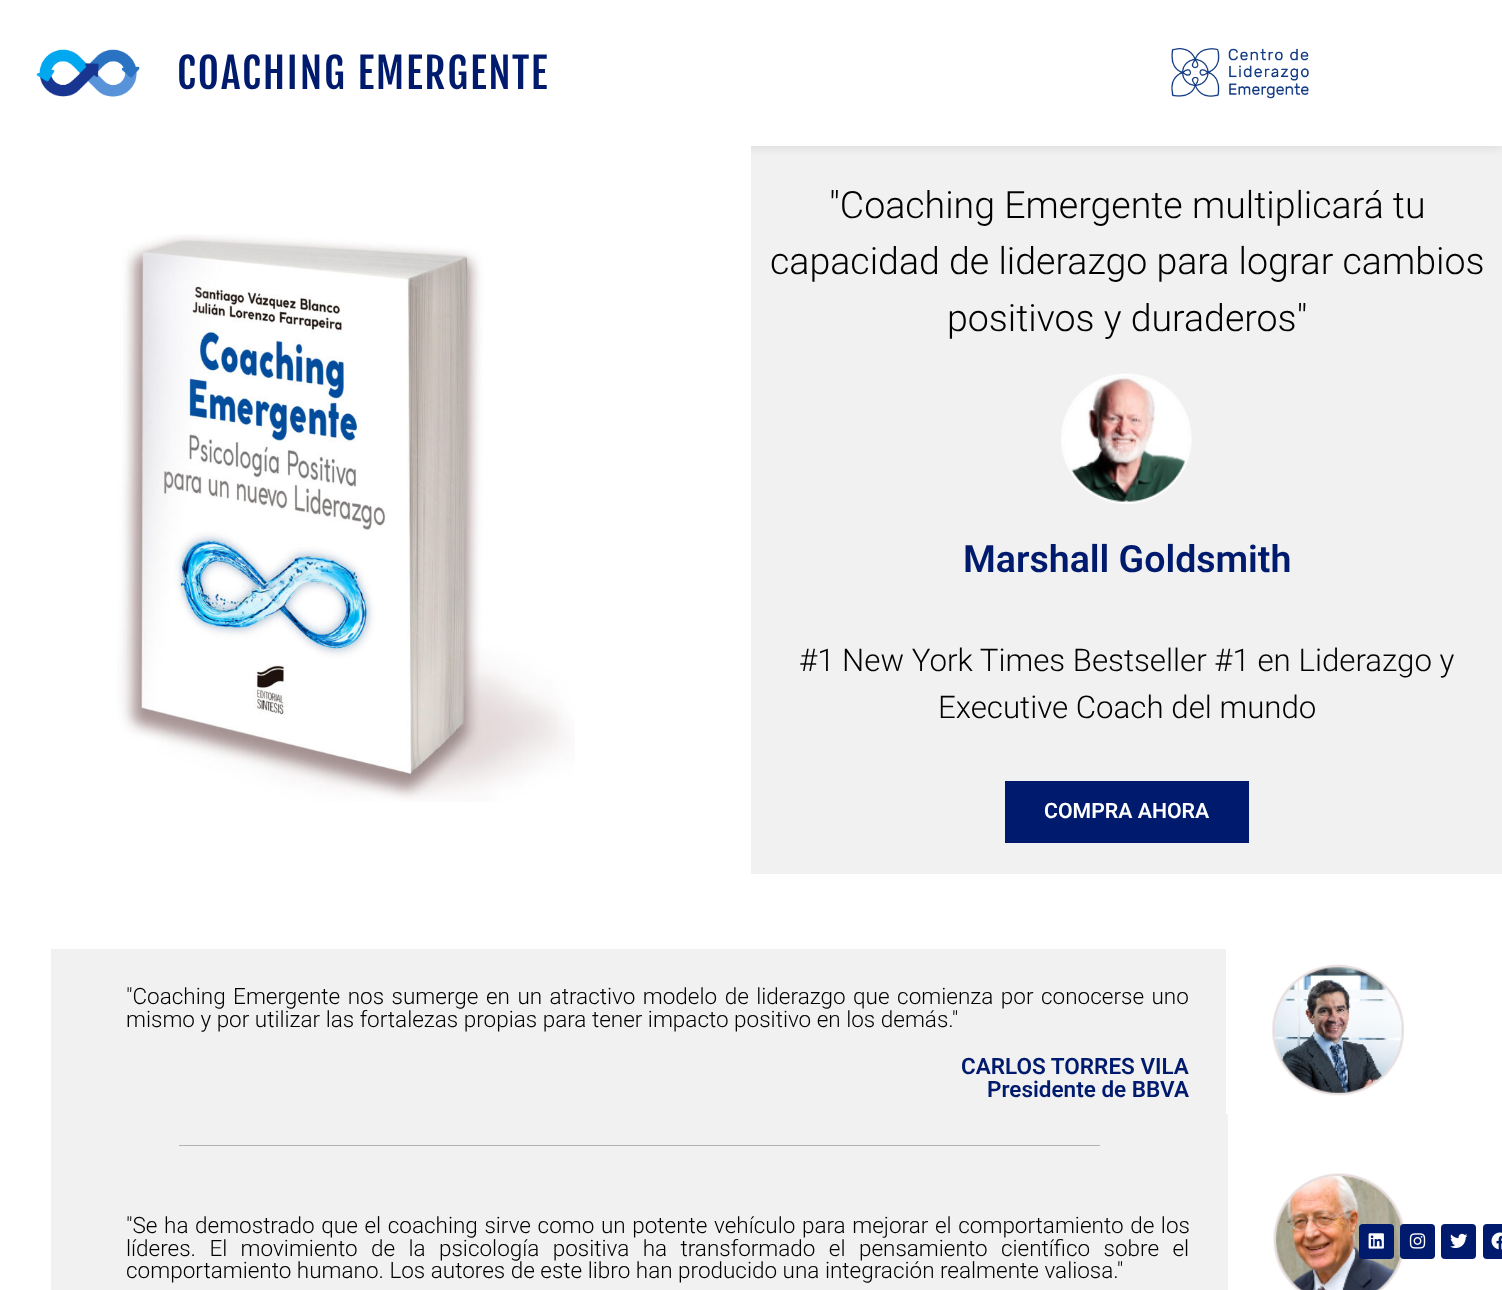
<svg xmlns="http://www.w3.org/2000/svg" width="1502" height="1290">
	<defs>
		<clipPath id="clip1"><rect x="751" y="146" width="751" height="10" /></clipPath>
	</defs>
	<rect width="100%" height="100%" fill="#FFFFFF" />
	<g clip-path="url(#clip1)">
		<rect x="0" y="0" width="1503" height="146" fill="#000000" fill-opacity="0.5" filter="blur(6px)" />
	</g>
	<image x="36" y="49" width="104" height="48" href="assets/img1.png" />
	<text x="177" y="89" font-family="Fjalla One" font-size="41.25" letter-spacing="1.9" fill="#001B6D">COACHING EMERGENTE</text>
	<image x="1171" y="48" width="138" height="51" href="assets/img2.png" />
	<rect x="0" y="146" width="751" height="12" fill="#FFFFFF" />
	<image x="117" y="234" width="458" height="568" href="assets/img3.png" />
	<rect x="751" y="146" width="751" height="728" fill="#EDEDED" fill-opacity="0.76" />
	<g font-family="Roboto" font-size="37.5" font-weight="300" fill="#000000">
		<text x="829" y="218">"Coaching Emergente multiplicará tu</text>
		<text x="770" y="274">capacidad de liderazgo para lograr cambios</text>
		<text x="947" y="331">positivos y duraderos"</text>
	</g>
	<image x="1061" y="373" width="131" height="131" href="assets/img4.png" />
	<text x="963" y="572" font-family="Roboto" font-size="37.5" font-weight="600" fill="#001B6D">Marshall Goldsmith</text>
	<g font-family="Roboto" font-size="31.25" font-weight="300" fill="#000000">
		<text x="799" y="671">#1 New York Times Bestseller #1 en Liderazgo y</text>
		<text x="938" y="718">Executive Coach del mundo</text>
	</g>
	<rect x="1009" y="784" width="236" height="56" fill="#001B6D" />
	<rect x="1005" y="781" width="244" height="3" fill="#001B6D" />
	<rect x="1245" y="781" width="4" height="62" fill="#001B6D" />
	<rect x="1005" y="840" width="244" height="3" fill="#001B6D" />
	<rect x="1005" y="781" width="4" height="62" fill="#001B6D" />
	<text x="1044" y="818" font-family="Roboto" font-size="21.25" font-weight="600" fill="#FFFFFF">COMPRA AHORA</text>
	<rect x="51" y="949" width="1175" height="165" fill="#F2F1F1" />
	<g font-family="Roboto" font-size="22.5" font-weight="300" fill="#000000">
		<text x="126" y="1004" word-spacing="2">"Coaching Emergente nos sumerge en un atractivo modelo de liderazgo que comienza por conocerse uno</text>
		<text x="126" y="1027">mismo y por utilizar las fortalezas propias para tener impacto positivo en los demás."</text>
	</g>
	<g font-family="Roboto" font-size="22.5" font-weight="600" fill="#001B6D">
		<text x="961" y="1074">CARLOS TORRES VILA</text>
		<text x="987" y="1097">Presidente de BBVA</text>
	</g>
	<image x="1272" y="964" width="132" height="132" href="assets/img5.png" />
	<rect x="51" y="1114" width="1177" height="176" fill="#F2F1F1" />
	<rect x="179" y="1145" width="921" height="1" fill="#B3B1B1" />
	<g font-family="Roboto" font-size="22.5" font-weight="300" fill="#000000">
		<text x="126" y="1233" word-spacing="1.1">"Se ha demostrado que el coaching sirve como un potente vehículo para mejorar el comportamiento de los</text>
		<text x="126" y="1256" word-spacing="7.9">líderes. El movimiento de la psicología positiva ha transformado el pensamiento científico sobre el</text>
		<text x="126" y="1278">comportamiento humano. Los autores de este libro han producido una integración realmente valiosa."</text>
	</g>
	<image x="1273" y="1173" width="133" height="117" href="assets/img6.png" />
	<rect x="1359" y="1224" width="35" height="35" rx="4" fill="#001B6D" />
	<image x="1368" y="1233" width="16" height="16" href="assets/img7.png" />
	<rect x="1400" y="1224" width="35" height="35" rx="4" fill="#001B6D" />
	<image x="1409" y="1233" width="17" height="16" href="assets/img8.png" />
	<rect x="1441" y="1224" width="35" height="35" rx="4" fill="#001B6D" />
	<image x="1450" y="1233" width="18" height="16" href="assets/img9.png" />
	<rect x="1483" y="1224" width="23" height="35" rx="4" fill="#001B6D" />
	<image x="1491" y="1232" width="11" height="18" href="assets/img10.png" />
</svg>
